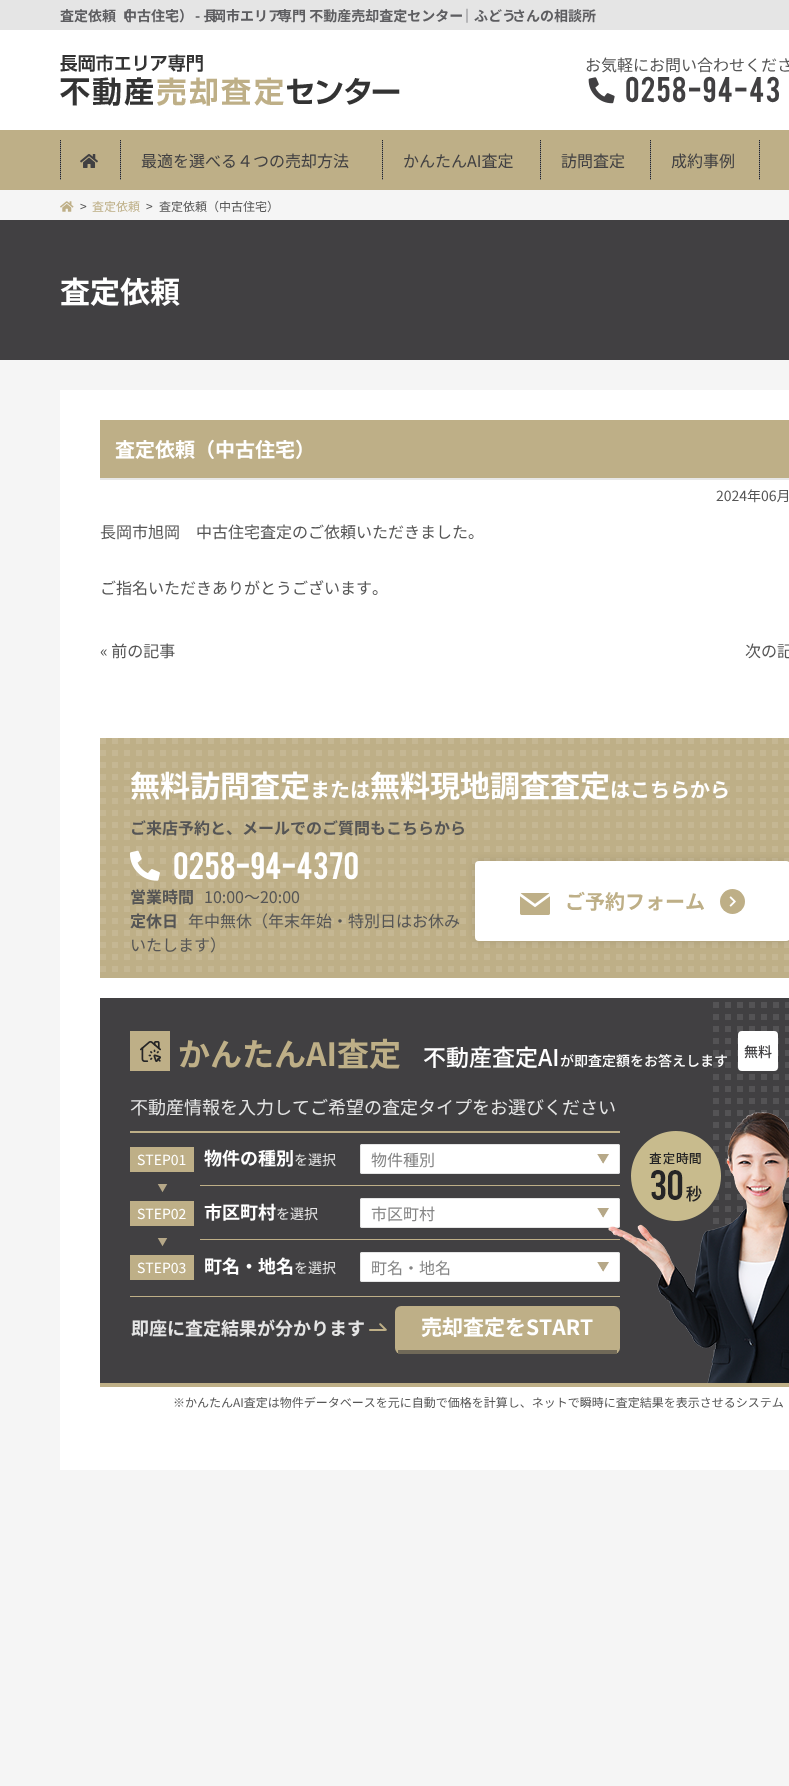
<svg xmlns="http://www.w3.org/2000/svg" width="789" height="1786">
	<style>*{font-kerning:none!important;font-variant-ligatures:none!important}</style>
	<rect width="100%" height="100%" fill="#F5F5F5" />
	<rect x="0" y="30" width="789" height="100" fill="#FFFFFF" />
	<rect x="0" y="0" width="789" height="30" fill="#E5E5E5" />
	<text x="60" y="21" font-family="Noto Sans JP" font-size="14" font-weight="700" fill="#5D5D60">査定依頼（</text>
	<text x="123" y="21" font-family="Noto Sans JP" font-size="14" font-weight="700" fill="#5D5D60">中古住宅）</text>
	<text x="195" y="21" font-family="Noto Sans JP" font-size="14" font-weight="700" fill="#5D5D60">- 長</text>
	<text x="212" y="21" font-family="Noto Sans JP" font-size="14" font-weight="700" fill="#5D5D60">岡市エリア</text>
	<text x="278" y="21" font-family="Noto Sans JP" font-size="14" font-weight="700" fill="#5D5D60">専門 不動産売却査定センター</text>
	<text x="460" y="21" font-family="Noto Sans JP" font-size="14" font-weight="700" fill="#5D5D60">｜ふどう</text>
	<text x="512" y="21" font-family="Noto Sans JP" font-size="14" font-weight="700" fill="#5D5D60">さんの相談所</text>
	<image x="60" y="54" width="340" height="52" href="assets/img1.png" />
	<text x="585" y="71" font-family="Noto Sans JP" font-size="16" fill="#555555">お気軽にお問い合わせくださ</text>
	<image x="588" y="77" width="27" height="27" href="assets/img2.png" />
	<text x="625" y="102" font-family="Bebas" font-size="28" letter-spacing="1.1" fill="#414042">0258-94-43</text>
	<rect x="0" y="130" width="789" height="60" fill="#BEAF87" />
	<image x="60" y="140" width="1" height="40" href="assets/img3.png" />
	<image x="80" y="154" width="18" height="14" href="assets/img4.png" />
	<image x="120" y="140" width="1" height="40" href="assets/img3.png" />
	<text x="141" y="167" font-family="Noto Sans JP" font-size="16" fill="#414042">最適を選べる４つの売却方法</text>
	<image x="382" y="140" width="1" height="40" href="assets/img3.png" />
	<text x="403" y="167" font-family="Noto Sans JP" font-size="16" fill="#414042">かんたんAI査定</text>
	<image x="540" y="140" width="1" height="40" href="assets/img3.png" />
	<text x="561" y="167" font-family="Noto Sans JP" font-size="16" fill="#414042">訪問査定</text>
	<image x="650" y="140" width="1" height="40" href="assets/img3.png" />
	<text x="671" y="167" font-family="Noto Sans JP" font-size="16" fill="#414042">成約事例</text>
	<image x="759" y="140" width="1" height="40" href="assets/img3.png" />
	<image x="60" y="201" width="14" height="11" href="assets/img5.png" />
	<text x="80" y="211" font-family="Noto Sans JP" font-size="12" fill="#555555">&gt;</text>
	<text x="92" y="211" font-family="Noto Sans JP" font-size="12" fill="#BEAF87">査定依頼</text>
	<g font-family="Noto Sans JP" font-size="12" fill="#555555">
		<text x="146" y="211">&gt;</text>
		<text x="159" y="211">査定依頼（中古住宅）</text>
	</g>
	<rect x="0" y="220" width="789" height="140" fill="#414042" />
	<text x="60" y="303" font-family="Noto Sans JP" font-size="30" font-weight="700" fill="#FFFFFF">査定依頼</text>
	<rect x="60" y="390" width="729" height="1080" fill="#FFFFFF" />
	<rect x="100" y="420" width="689" height="58" fill="#BEAF87" />
	<rect x="100" y="478" width="689" height="2" fill="#E7E7E7" />
	<text x="115" y="457" font-family="Noto Sans JP" font-size="20" font-weight="700" fill="#FFFFFF">査定依頼（中古住宅）</text>
	<text x="716" y="501" font-family="Noto Sans JP" font-size="14" fill="#555555">2024年06月</text>
	<g font-family="Noto Sans JP" font-size="16" fill="#555555">
		<text x="100" y="538">長岡市旭岡　中古住宅査定のご依頼いただきました。</text>
		<text x="100" y="594">ご指名いただきありがとうございます。</text>
		<text x="100" y="657">« 前の記事</text>
		<text x="745" y="657">次の記</text>
	</g>
	<rect x="100" y="972" width="689" height="6" fill="#BEAF87" />
	<image x="100" y="738" width="689" height="234" href="assets/img6.png" />
	<text x="130" y="797" font-family="Noto Sans JP" font-size="30" font-weight="700" fill="#FFFFFF">無料訪問査定</text>
	<text x="310" y="797" font-family="Noto Sans JP" font-size="20" font-weight="700" fill="#FFFFFF">または</text>
	<text x="370" y="797" font-family="Noto Sans JP" font-size="30" font-weight="700" fill="#FFFFFF">無料現地調査査定</text>
	<text x="610" y="797" font-family="Noto Sans JP" font-size="20" font-weight="700" fill="#FFFFFF">はこちらから</text>
	<text x="130" y="834" font-family="Noto Sans JP" font-size="16" font-weight="700" fill="#555555">ご来店予約と、メールでのご質問もこちらから</text>
	<image x="129" y="850" width="31" height="31" href="assets/img7.png" />
	<text x="173" y="879" font-family="Bebas" font-size="30" fill="#FFFFFF">0258-94-4370</text>
	<text x="130" y="903" font-family="Noto Sans JP" font-size="16" font-weight="700" fill="#555555">営業時間</text>
	<text x="204" y="903" font-family="Noto Sans JP" font-size="16" fill="#555555">10:00～20:00</text>
	<text x="130" y="927" font-family="Noto Sans JP" font-size="16" font-weight="700" fill="#555555">定休日</text>
	<g font-family="Noto Sans JP" font-size="16" fill="#555555">
		<text x="188" y="927">年中無休（年末年始・特別日はお休み</text>
		<text x="130" y="951">いたします）</text>
	</g>
	<rect x="475" y="861" width="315" height="80" rx="4" fill="#000000" fill-opacity="0.1" filter="blur(5px)" />
	<rect x="475" y="861" width="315" height="80" rx="4" fill="#FFFFFF" />
	<image x="520" y="893" width="30" height="22" href="assets/img8.png" />
	<text x="565" y="909" font-family="Noto Sans JP" font-size="20" font-weight="700" fill="#BEAF87">ご予約フォーム</text>
	<circle cx="732.5" cy="901.5" r="12.5" fill="#BEAF87" />
	<image x="729" y="896" width="7" height="11" href="assets/img9.png" />
	<rect x="100" y="998" width="689" height="385" fill="#414042" />
	<rect x="100" y="1383" width="689" height="4" fill="#BEAF87" />
	<image x="713" y="1002" width="76" height="356" href="assets/img10.png" />
	<image x="130" y="1031" width="40" height="40" href="assets/img11.png" />
	<text x="178" y="1066" font-family="Noto Sans JP" font-size="32" font-weight="700" fill="#BEAF87">かんたんAI査定</text>
	<text x="423" y="1066" font-family="Noto Sans JP" font-size="23" font-weight="500" fill="#FFFFFF">不動産査定AI</text>
	<text x="560" y="1066" font-family="Noto Sans JP" font-size="14" font-weight="500" fill="#FFFFFF">が即査定額をお答えします</text>
	<rect x="738" y="1031" width="40" height="40" rx="4" fill="#FFFFFF" />
	<text x="744" y="1057" font-family="Noto Sans JP" font-size="14" font-weight="500" fill="#414042">無料</text>
	<text x="130" y="1114" font-family="Noto Sans JP" font-size="18" fill="#E5E5E5">不動産情報を入力してご希望の査定タイプをお選びください</text>
	<rect x="130" y="1131" width="490" height="2" fill="#BEAF87" />
	<rect x="130" y="1296" width="490" height="1" fill="#BEAF87" />
	<rect x="130" y="1147" width="64" height="25" fill="#BEAF87" />
	<text x="137" y="1165" font-family="Noto Sans JP" font-size="14" fill="#FFFFFF">STEP01</text>
	<rect x="200" y="1185" width="420" height="1" fill="#BEAF87" />
	<text x="204" y="1165" font-family="Noto Sans JP" font-size="18" font-weight="700" fill="#FFFFFF">物件の種別</text>
	<text x="294" y="1165" font-family="Noto Sans JP" font-size="14" fill="#E5E5E5">を選択</text>
	<rect x="360" y="1144" width="260" height="30" rx="2" fill="#FFFFFF" />
	<image x="597" y="1154" width="12" height="10" href="assets/img12.png" />
	<rect x="360.5" y="1144.5" width="259" height="29" rx="1.5" fill="none" stroke="#E5E5E5" />
	<text x="371" y="1166" font-family="Noto Sans JP" font-size="16" fill="#858585">物件種別</text>
	<image x="157" y="1184" width="11" height="9" href="assets/img13.png" />
	<rect x="130" y="1201" width="64" height="25" fill="#BEAF87" />
	<text x="137" y="1219" font-family="Noto Sans JP" font-size="14" fill="#FFFFFF">STEP02</text>
	<rect x="200" y="1239" width="420" height="1" fill="#BEAF87" />
	<text x="204" y="1219" font-family="Noto Sans JP" font-size="18" font-weight="700" fill="#FFFFFF">市区町村</text>
	<text x="276" y="1219" font-family="Noto Sans JP" font-size="14" fill="#E5E5E5">を選択</text>
	<rect x="360" y="1198" width="260" height="30" rx="2" fill="#FFFFFF" />
	<image x="597" y="1208" width="12" height="10" href="assets/img12.png" />
	<rect x="360.5" y="1198.5" width="259" height="29" rx="1.5" fill="none" stroke="#E5E5E5" />
	<text x="371" y="1220" font-family="Noto Sans JP" font-size="16" fill="#858585">市区町村</text>
	<image x="157" y="1238" width="11" height="9" href="assets/img13.png" />
	<rect x="130" y="1255" width="64" height="25" fill="#BEAF87" />
	<text x="137" y="1273" font-family="Noto Sans JP" font-size="14" fill="#FFFFFF">STEP03</text>
	<text x="204" y="1273" font-family="Noto Sans JP" font-size="18" font-weight="700" fill="#FFFFFF">町名・地名</text>
	<text x="294" y="1273" font-family="Noto Sans JP" font-size="14" fill="#E5E5E5">を選択</text>
	<rect x="360" y="1252" width="260" height="30" rx="2" fill="#FFFFFF" />
	<image x="597" y="1262" width="12" height="10" href="assets/img12.png" />
	<rect x="360.5" y="1252.5" width="259" height="29" rx="1.5" fill="none" stroke="#E5E5E5" />
	<text x="371" y="1274" font-family="Noto Sans JP" font-size="16" fill="#858585">町名・地名</text>
	<rect x="395" y="1306" width="225" height="48" rx="6" fill="#BEAF87" />
	<rect x="398" y="1350" width="219" height="4" fill="#706958" />
	<image x="608" y="1112" width="181" height="271" href="assets/img14.png" />
	<image x="369" y="1323" width="18" height="8" href="assets/img15.png" />
	<text x="131" y="1335" font-family="Noto Sans JP" font-size="18" font-weight="700" fill="#E5E5E5">即座に査定結果が分かります</text>
	<text x="421" y="1335" font-family="Noto Sans JP" font-size="21" font-weight="700" fill="#FFFFFF">売却査定をSTART</text>
	<text x="173" y="1407" font-family="Noto Sans JP" font-size="12" fill="#555555">※かんたんAI査定は物件データベースを元に自動で価格を計算し、ネットで瞬時に査定結果を表示させるシステム</text>
</svg>
